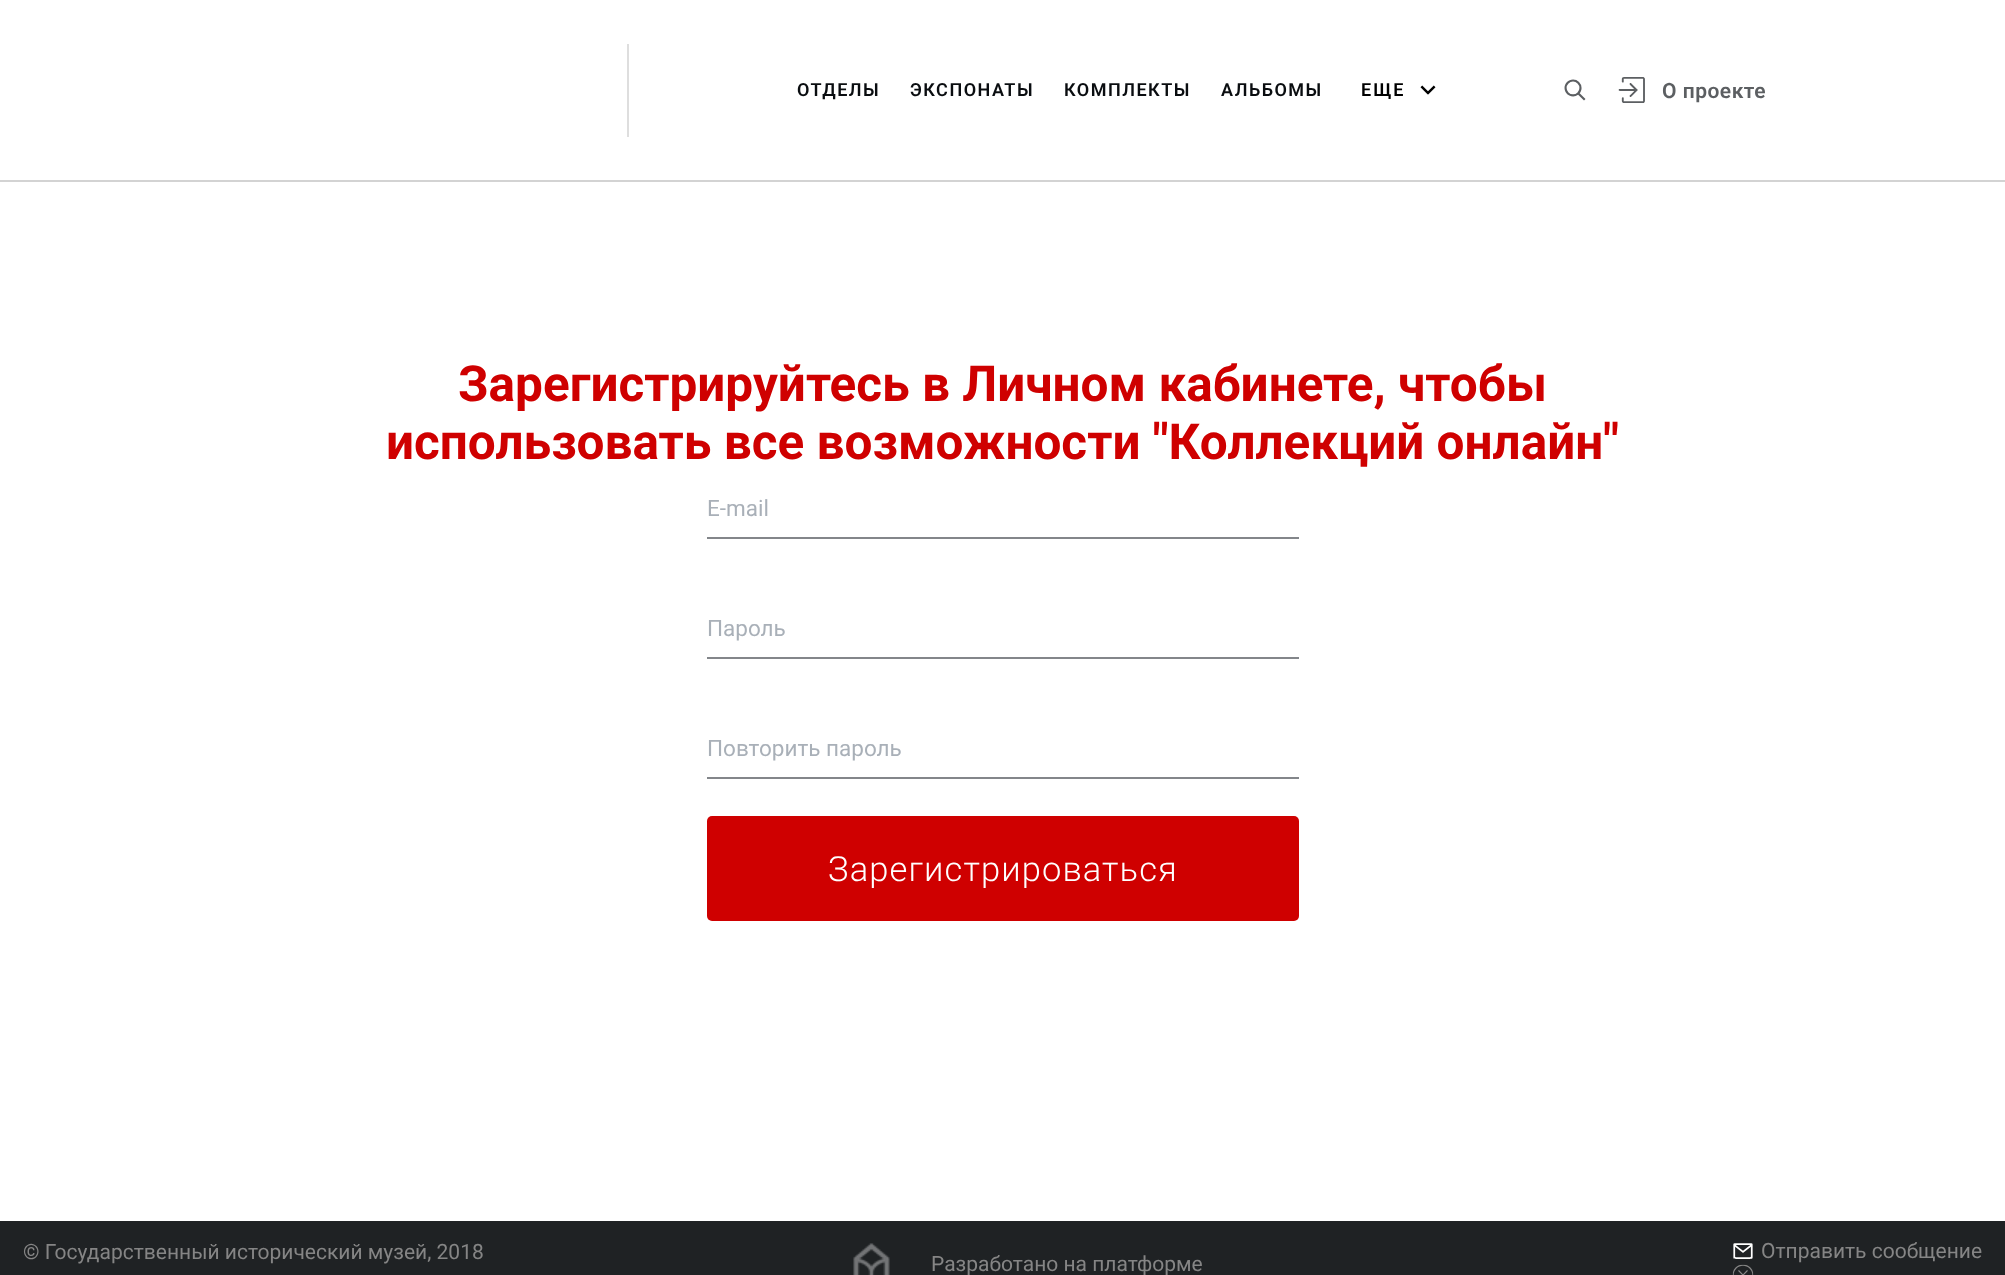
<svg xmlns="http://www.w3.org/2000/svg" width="2005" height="1275">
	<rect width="100%" height="100%" fill="#FFFFFF" />
	<rect x="0" y="180" width="2005" height="2" fill="#D3D3D3" />
	<rect x="627" y="44" width="2" height="93" fill="#DEDEDE" />
	<g font-family="Roboto" font-size="18" font-weight="600" letter-spacing="1.5" fill="#0A0D10">
		<text x="797" y="96">ОТДЕЛЫ</text>
		<text x="910" y="96">ЭКСПОНАТЫ</text>
		<text x="1064" y="96">КОМПЛЕКТЫ</text>
		<text x="1221" y="96">АЛЬБОМЫ</text>
	</g>
	<text x="1361" y="96" font-family="Roboto" font-size="18" font-weight="600" letter-spacing="2" fill="#000000">ЕЩЕ</text>
	<image x="1420" y="85" width="16" height="10" href="assets/img1.png" />
	<image x="1564" y="79" width="22" height="22" href="assets/img2.png" />
	<image x="1618" y="77" width="27" height="26" href="assets/img3.png" />
	<text x="1662" y="98" font-family="Roboto" font-size="21" font-weight="600" letter-spacing="0.5" fill="#5C5F62">О проекте</text>
	<g font-family="Roboto" font-size="49.5" font-weight="700" fill="#CF0000">
		<text x="458" y="401">Зарегистрируйтесь в Личном кабинете, чтобы</text>
		<text x="386" y="459">использовать все возможности "Коллекций онлайн"</text>
	</g>
	<text x="707" y="516" font-family="Roboto" font-size="22.5" fill="#A9B0B8">E-mail</text>
	<rect x="707" y="537" width="592" height="2" fill="#83868A" />
	<text x="707" y="636" font-family="Roboto" font-size="22.5" fill="#A9B0B8">Пароль</text>
	<rect x="707" y="657" width="592" height="2" fill="#83868A" />
	<text x="707" y="756" font-family="Roboto" font-size="22.5" fill="#A9B0B8">Повторить пароль</text>
	<rect x="707" y="777" width="592" height="2" fill="#83868A" />
	<rect x="707" y="816" width="592" height="105" rx="5" fill="#CF0000" />
	<text x="828" y="881" font-family="Roboto" font-size="34.5" font-weight="300" letter-spacing="1.1" fill="#FFFFFF">Зарегистрироваться</text>
	<rect x="0" y="1221" width="2005" height="54" fill="#1F2224" />
	<text x="23" y="1259" font-family="Roboto" font-size="21" fill="#858585">© Государственный исторический музей, 2018</text>
	<image x="853" y="1243" width="37" height="32" href="assets/img4.png" />
	<text x="931" y="1271" font-family="Roboto" font-size="21" fill="#858585">Разработано на платформе</text>
	<image x="1733" y="1243" width="20" height="16" href="assets/img5.png" />
	<text x="1761" y="1258" font-family="Roboto" font-size="21" fill="#858585">Отправить сообщение</text>
	<image x="1732" y="1264" width="22" height="11" href="assets/img6.png" />
</svg>
